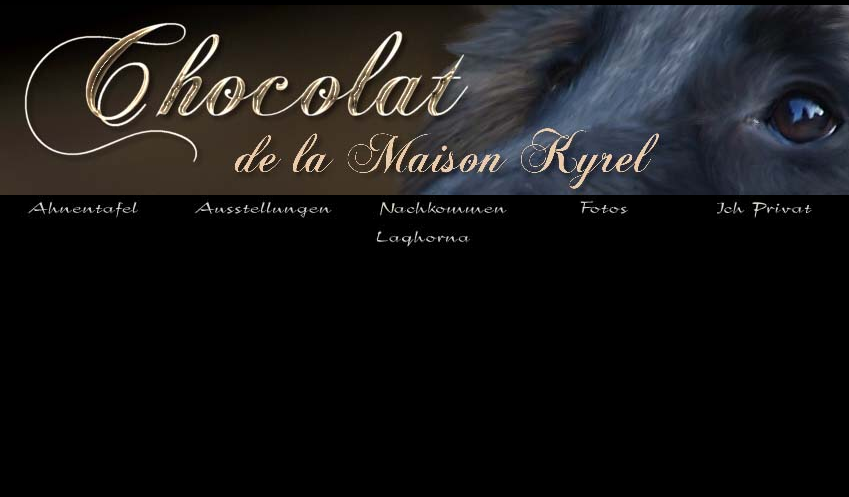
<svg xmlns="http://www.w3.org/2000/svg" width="849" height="497">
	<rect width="100%" height="100%" fill="#000000" />
	<image x="0" y="5" width="849" height="190" href="assets/img1.png" />
	<image x="21" y="195" width="120" height="24" href="assets/img2.png" />
	<image x="193" y="195" width="144" height="24" href="assets/img3.png" />
	<image x="373" y="195" width="136" height="24" href="assets/img4.png" />
	<image x="579" y="195" width="50" height="24" href="assets/img5.png" />
	<image x="717" y="195" width="96" height="24" href="assets/img6.png" />
	<image x="375" y="224" width="98" height="24" href="assets/img7.png" />
</svg>
